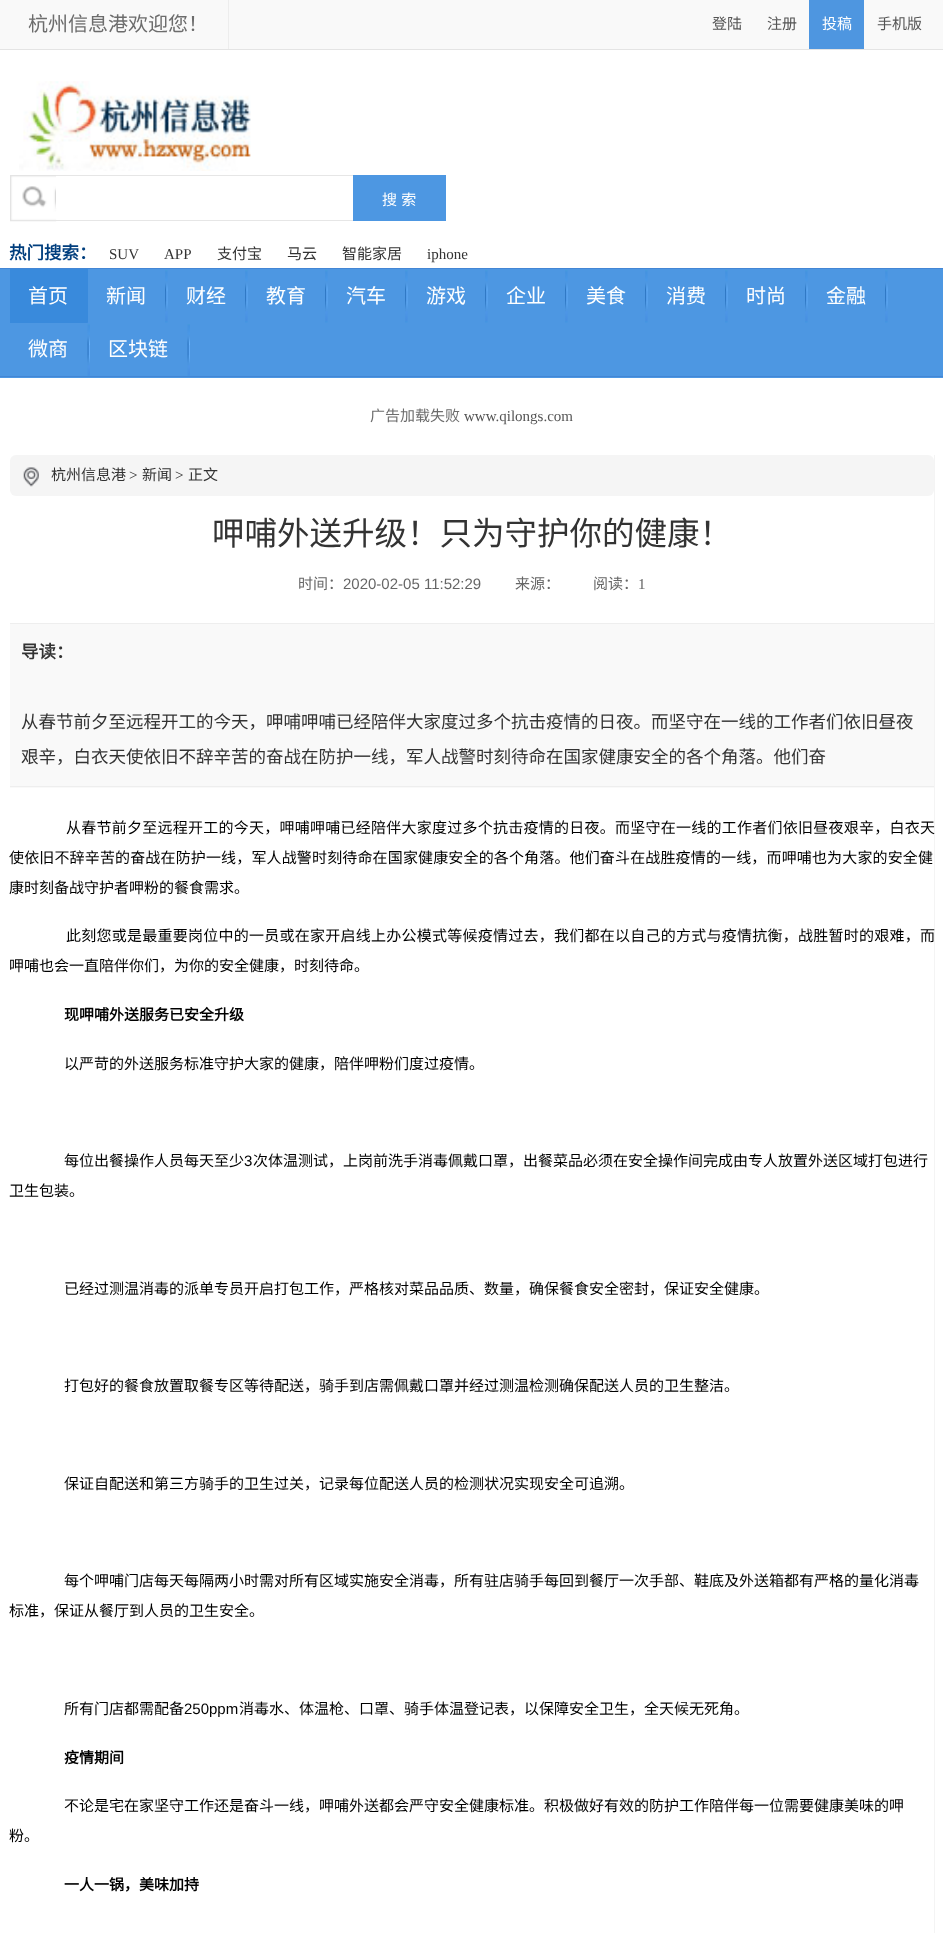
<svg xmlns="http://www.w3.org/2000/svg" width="943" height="1933">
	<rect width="100%" height="100%" fill="#FFFFFF" />
	<rect x="0" y="0" width="943" height="49" fill="#F9F9F9" />
	<rect x="0" y="49" width="943" height="1" fill="#E4E4E4" />
	<rect x="228" y="0" width="1" height="49" fill="#EDEDED" />
	<text x="28" y="31" font-family="Noto Sans CJK SC" font-size="20" fill="#6C6C6C">杭州信息港欢迎您！</text>
	<g font-family="Noto Sans CJK SC" font-size="15" fill="#545454">
		<text x="712" y="29">登陆</text>
		<text x="767" y="29">注册</text>
	</g>
	<rect x="809" y="0" width="55" height="49" fill="#4E96E0" />
	<text x="822" y="29" font-family="Noto Sans CJK SC" font-size="15" fill="#FFFFFF">投稿</text>
	<text x="877" y="29" font-family="Noto Sans CJK SC" font-size="15" fill="#545454">手机版</text>
	<image x="19" y="81" width="232" height="90" href="assets/img1.png" />
	<image x="10" y="175" width="47" height="47" href="assets/img2.png" />
	<rect x="56" y="176" width="1" height="32" fill="#FFFFFF" />
	<rect x="56" y="175" width="297" height="1" fill="#E6E6E6" />
	<rect x="56" y="220" width="297" height="1" fill="#E6E6E6" />
	<rect x="353" y="175" width="93" height="46" fill="#4D97E2" />
	<text x="382" y="205" word-spacing="1" font-family="Noto Sans CJK SC" font-size="15" fill="#FFFFFF">搜 索</text>
	<text x="9" y="259" font-family="Noto Sans CJK SC" font-size="17.5" font-weight="700" fill="#003E7D">热门搜索：</text>
	<g font-family="Liberation Serif" font-size="15" fill="#333333">
		<text x="109" y="259">SUV</text>
		<text x="164" y="259">APP</text>
	</g>
	<g font-family="Noto Sans CJK SC" font-size="15" fill="#333333">
		<text x="217" y="259">支付宝</text>
		<text x="287" y="259">马云</text>
		<text x="342" y="259">智能家居</text>
	</g>
	<text x="427" y="259" font-family="Liberation Serif" font-size="15" fill="#333333">iphone</text>
	<rect x="0" y="269" width="943" height="109" fill="#4D97E2" />
	<rect x="0" y="268" width="943" height="1" fill="#4386D5" />
	<rect x="0" y="376" width="943" height="1" fill="#4386D5" />
	<rect x="10" y="269" width="78" height="54" fill="#398ADC" />
	<g font-family="Noto Sans CJK SC" font-size="20" fill="#FFFFFF">
		<text x="28" y="303">首页</text>
		<text x="106" y="303">新闻</text>
	</g>
	<image x="165" y="270" width="3" height="53" href="assets/img3.png" />
	<text x="186" y="303" font-family="Noto Sans CJK SC" font-size="20" fill="#FFFFFF">财经</text>
	<image x="245" y="270" width="3" height="53" href="assets/img3.png" />
	<text x="266" y="303" font-family="Noto Sans CJK SC" font-size="20" fill="#FFFFFF">教育</text>
	<image x="325" y="270" width="3" height="53" href="assets/img3.png" />
	<text x="346" y="303" font-family="Noto Sans CJK SC" font-size="20" fill="#FFFFFF">汽车</text>
	<image x="405" y="270" width="3" height="53" href="assets/img3.png" />
	<text x="426" y="303" font-family="Noto Sans CJK SC" font-size="20" fill="#FFFFFF">游戏</text>
	<image x="485" y="270" width="3" height="53" href="assets/img3.png" />
	<text x="506" y="303" font-family="Noto Sans CJK SC" font-size="20" fill="#FFFFFF">企业</text>
	<image x="565" y="270" width="3" height="53" href="assets/img3.png" />
	<text x="586" y="303" font-family="Noto Sans CJK SC" font-size="20" fill="#FFFFFF">美食</text>
	<image x="645" y="270" width="3" height="53" href="assets/img3.png" />
	<text x="666" y="303" font-family="Noto Sans CJK SC" font-size="20" fill="#FFFFFF">消费</text>
	<image x="725" y="270" width="3" height="53" href="assets/img3.png" />
	<text x="746" y="303" font-family="Noto Sans CJK SC" font-size="20" fill="#FFFFFF">时尚</text>
	<image x="805" y="270" width="3" height="53" href="assets/img3.png" />
	<text x="826" y="303" font-family="Noto Sans CJK SC" font-size="20" fill="#FFFFFF">金融</text>
	<image x="885" y="270" width="3" height="53" href="assets/img3.png" />
	<text x="28" y="356" font-family="Noto Sans CJK SC" font-size="20" fill="#FFFFFF">微商</text>
	<image x="87" y="322" width="3" height="54" href="assets/img4.png" />
	<text x="108" y="356" font-family="Noto Sans CJK SC" font-size="20" fill="#FFFFFF">区块链</text>
	<image x="187" y="324" width="3" height="52" href="assets/img5.png" />
	<text x="370" y="421" font-family="Noto Sans CJK SC" font-size="15" fill="#6C6C6C">广告加载失败</text>
	<text x="464" y="421" font-family="Liberation Serif" font-size="15" fill="#545454">www.qilongs.com</text>
	<rect x="934" y="455" width="1" height="1478" fill="#F4F4F4" />
	<rect x="10" y="455" width="924" height="41" rx="6" fill="#F5F5F5" />
	<image x="23" y="467" width="16" height="20" href="assets/img6.png" />
	<text x="51" y="480" font-family="Noto Sans CJK SC" font-size="15" fill="#333333">杭州信息港</text>
	<text x="129" y="480" font-family="Liberation Serif" font-size="15" fill="#333333">&gt;</text>
	<text x="142" y="480" font-family="Noto Sans CJK SC" font-size="15" fill="#333333">新闻</text>
	<text x="175" y="480" font-family="Liberation Serif" font-size="15" fill="#333333">&gt;</text>
	<text x="188" y="480" font-family="Noto Sans CJK SC" font-size="15" fill="#333333">正文</text>
	<text x="212" y="545" font-family="Noto Sans CJK SC" font-size="32.5" fill="#333333">呷哺外送升级！只为守护你的健康！</text>
	<text x="298" y="589" font-family="Noto Sans CJK SC" font-size="15" fill="#666666">时间：</text>
	<text x="343" y="589" font-family="Liberation Sans" font-size="15" fill="#666666">2020-02-05 11:52:29</text>
	<g font-family="Noto Sans CJK SC" font-size="15" fill="#666666">
		<text x="515" y="589">来源：</text>
		<text x="593" y="589">阅读：</text>
	</g>
	<text x="638" y="589" font-family="Liberation Serif" font-size="15" fill="#666666">1</text>
	<rect x="10" y="624" width="924" height="164" fill="#F9F9F9" />
	<rect x="10" y="623" width="924" height="1" fill="#EEEEEE" />
	<rect x="10" y="786" width="924" height="1" fill="#EEEEEE" />
	<text x="21" y="658" font-family="Noto Sans CJK SC" font-size="17.5" font-weight="700" fill="#333333">导读：</text>
	<g font-family="Noto Sans CJK SC" font-size="17.5" fill="#333333">
		<text x="21" y="728">从春节前夕至远程开工的今天，呷哺呷哺已经陪伴大家度过多个抗击疫情的日夜。而坚守在一线的工作者们依旧昼夜</text>
		<text x="21" y="763">艰辛，白衣天使依旧不辞辛苦的奋战在防护一线，军人战警时刻待命在国家健康安全的各个角落。他们奋</text>
	</g>
	<text x="66" y="833" font-family="Noto Sans CJK SC" font-size="15" letter-spacing="0.25" fill="#000000">从春节前夕至远程开工的今天，呷哺呷哺已经陪伴大家度过多个抗击疫情的日夜。而坚守在一线的工作者们依旧昼夜艰辛，白衣天</text>
	<text x="9" y="863" font-family="Noto Sans CJK SC" font-size="15" letter-spacing="0.15" fill="#000000">使依旧不辞辛苦的奋战在防护一线，军人战警时刻待命在国家健康安全的各个角落。他们奋斗在战胜疫情的一线，而呷哺也为大家的安全健</text>
	<text x="9" y="893" font-family="Noto Sans CJK SC" font-size="15" fill="#000000">康时刻备战守护者呷粉的餐食需求。</text>
	<text x="66" y="941" font-family="Noto Sans CJK SC" font-size="15" letter-spacing="0.25" fill="#000000">此刻您或是最重要岗位中的一员或在家开启线上办公模式等候疫情过去，我们都在以自己的方式与疫情抗衡，战胜暂时的艰难，而</text>
	<text x="9" y="971" font-family="Noto Sans CJK SC" font-size="15" fill="#000000">呷哺也会一直陪伴你们，为你的安全健康，时刻待命。</text>
	<text x="64" y="1020" font-family="Noto Sans CJK SC" font-size="15" font-weight="700" fill="#000000">现呷哺外送服务已安全升级</text>
	<g font-family="Noto Sans CJK SC" font-size="15" fill="#000000">
		<text x="64" y="1069">以严苛的外送服务标准守护大家的健康，陪伴呷粉们度过疫情。</text>
		<text x="64" y="1166">每位出餐操作人员每天至少</text>
	</g>
	<text x="244" y="1166" font-family="Liberation Sans" font-size="15" fill="#000000">3</text>
	<g font-family="Noto Sans CJK SC" font-size="15" fill="#000000">
		<text x="253" y="1166">次体温测试，上岗前洗手消毒佩戴口罩，出餐菜品必须在安全操作间完成由专人放置外送区域打包进行</text>
		<text x="9" y="1196">卫生包装。</text>
		<text x="64" y="1294">已经过测温消毒的派单专员开启打包工作，严格核对菜品品质、数量，确保餐食安全密封，保证安全健康。</text>
		<text x="64" y="1391">打包好的餐食放置取餐专区等待配送，骑手到店需佩戴口罩并经过测温检测确保配送人员的卫生整洁。</text>
		<text x="64" y="1489">保证自配送和第三方骑手的卫生过关，记录每位配送人员的检测状况实现安全可追溯。</text>
		<text x="64" y="1586">每个呷哺门店每天每隔两小时需对所有区域实施安全消毒，所有驻店骑手每回到餐厅一次手部、鞋底及外送箱都有严格的量化消毒</text>
		<text x="9" y="1616">标准，保证从餐厅到人员的卫生安全。</text>
		<text x="64" y="1714">所有门店都需配备</text>
	</g>
	<text x="184" y="1714" font-family="Liberation Sans" font-size="15" fill="#000000">250ppm</text>
	<text x="239" y="1714" font-family="Noto Sans CJK SC" font-size="15" fill="#000000">消毒水、体温枪、口罩、骑手体温登记表，以保障安全卫生，全天候无死角。</text>
	<text x="64" y="1763" font-family="Noto Sans CJK SC" font-size="15" font-weight="700" fill="#000000">疫情期间</text>
	<g font-family="Noto Sans CJK SC" font-size="15" fill="#000000">
		<text x="64" y="1811">不论是宅在家坚守工作还是奋斗一线，呷哺外送都会严守安全健康标准。积极做好有效的防护工作陪伴每一位需要健康美味的呷</text>
		<text x="9" y="1841">粉。</text>
	</g>
	<text x="64" y="1890" font-family="Noto Sans CJK SC" font-size="15" font-weight="700" fill="#000000">一人一锅，美味加持</text>
</svg>
